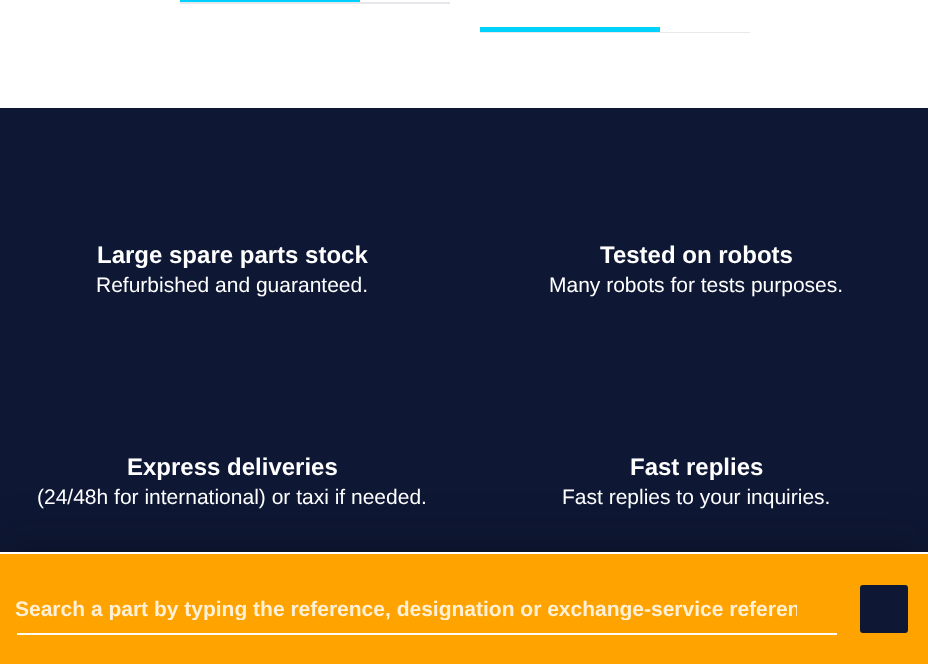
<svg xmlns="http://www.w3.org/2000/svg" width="928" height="664">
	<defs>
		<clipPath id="clip1"><rect x="15" y="596" width="782" height="24" /></clipPath>
	</defs>
	<rect width="100%" height="100%" fill="#FFFFFF" />
	<rect x="180" y="2" width="270" height="2" fill="#E7E8EB" />
	<rect x="180" y="0" width="180" height="2" fill="#00D1FF" />
	<rect x="480" y="32" width="270" height="1" fill="#E7E8EB" />
	<rect x="480" y="27" width="180" height="5" fill="#00D1FF" />
	<rect x="0" y="108" width="928" height="444" fill="#0E1734" />
	<text x="97" y="263" font-family="Liberation Sans" font-size="24" font-weight="700" fill="#FFFFFF">Large spare parts stock</text>
	<text x="96" y="292" font-family="Liberation Sans" font-size="21" fill="#FFFFFF">Refurbished and guaranteed.</text>
	<text x="600" y="263" font-family="Liberation Sans" font-size="24" font-weight="700" fill="#FFFFFF">Tested on robots</text>
	<text x="549" y="292" font-family="Liberation Sans" font-size="21" fill="#FFFFFF">Many robots for tests purposes.</text>
	<text x="127" y="475" font-family="Liberation Sans" font-size="24" font-weight="700" fill="#FFFFFF">Express deliveries</text>
	<text x="37" y="504" font-family="Liberation Sans" font-size="21" fill="#FFFFFF">(24/48h for international) or taxi if needed.</text>
	<text x="630" y="475" font-family="Liberation Sans" font-size="24" font-weight="700" fill="#FFFFFF">Fast replies</text>
	<text x="562" y="504" font-family="Liberation Sans" font-size="21" fill="#FFFFFF">Fast replies to your inquiries.</text>
	<rect x="0" y="539" width="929" height="112" fill="#0A0A0A" fill-opacity="0.23" filter="blur(22px)" />
	<rect x="0" y="554" width="928" height="110" fill="#FFA300" />
	<rect x="0" y="552" width="928" height="2" fill="#FFFFFF" />
	<rect x="17" y="633" width="820" height="2" fill="#FFFAF2" />
	<g clip-path="url(#clip1)">
		<text x="15" y="616" font-family="Liberation Sans" font-size="21" font-weight="700" fill="#FFF0D6">Search a part by typing the reference, designation or exchange-service referen</text>
	</g>
	<rect x="860" y="585" width="48" height="48" rx="3" fill="#0E1734" />
</svg>
